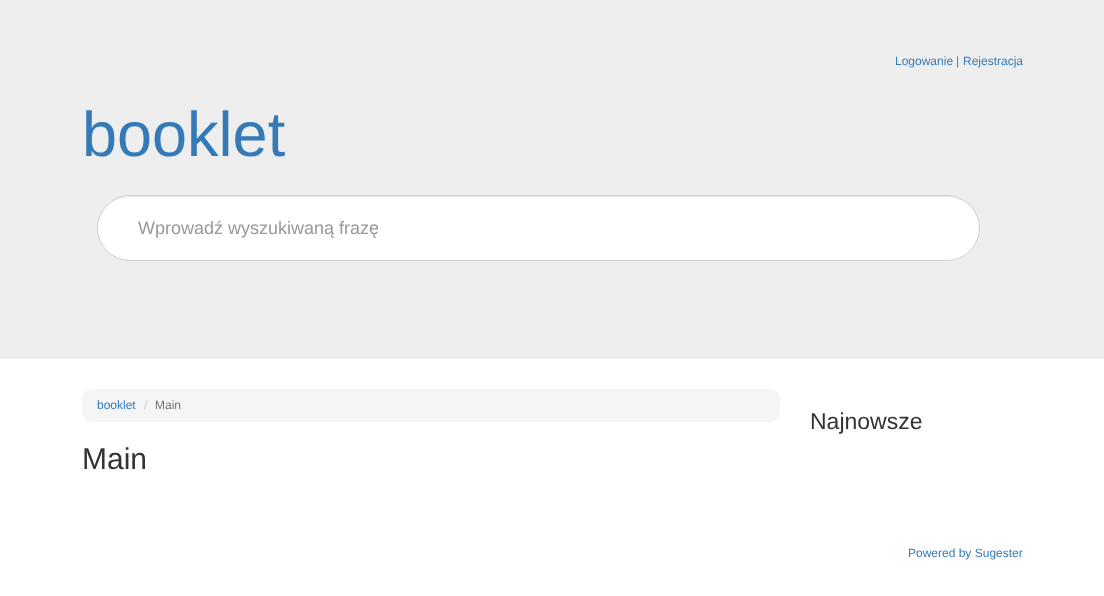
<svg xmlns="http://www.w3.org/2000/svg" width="1104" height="596">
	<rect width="100%" height="100%" fill="#FFFFFF" />
	<rect x="0" y="0" width="1104" height="359" fill="#EEEEEE" />
	<text x="895" y="65" font-family="Liberation Sans" font-size="12" fill="#337AB7">Logowanie</text>
	<text x="956" y="65" font-family="Liberation Sans" font-size="12" fill="#737373">|</text>
	<text x="963" y="65" font-family="Liberation Sans" font-size="12" fill="#337AB7">Rejestracja</text>
	<text x="82" y="156" font-family="Liberation Sans" font-size="63" fill="#337AB7">booklet</text>
	<rect x="97" y="195" width="883" height="66" rx="33" fill="#FFFFFF" />
	<path d="M130 197H947C965 197 979 211 979 228C979 210 965 196 947 196H130C112 196 98 210 98 228C98 211 112 197 130 197Z" fill="#ECECEC" />
	<rect x="97.5" y="195.5" width="882" height="65" rx="32.5" fill="none" stroke="#CCCCCC" />
	<text x="138" y="234" font-family="Liberation Sans" font-size="18" fill="#999999">Wprowadź wyszukiwaną frazę</text>
	<rect x="82" y="389" width="698" height="33" rx="10" fill="#F5F5F5" />
	<text x="97" y="409" font-family="Liberation Sans" font-size="12" fill="#337AB7">booklet</text>
	<text x="144" y="409" font-family="Liberation Sans" font-size="12" fill="#CCCCCC">/</text>
	<text x="155" y="409" font-family="Liberation Sans" font-size="12" fill="#737373">Main</text>
	<text x="82" y="469" font-family="Liberation Sans" font-size="30" fill="#333333">Main</text>
	<text x="810" y="429" font-family="Liberation Sans" font-size="23" fill="#333333">Najnowsze</text>
	<text x="908" y="557" font-family="Liberation Sans" font-size="12" fill="#337AB7">Powered by Sugester</text>
</svg>
